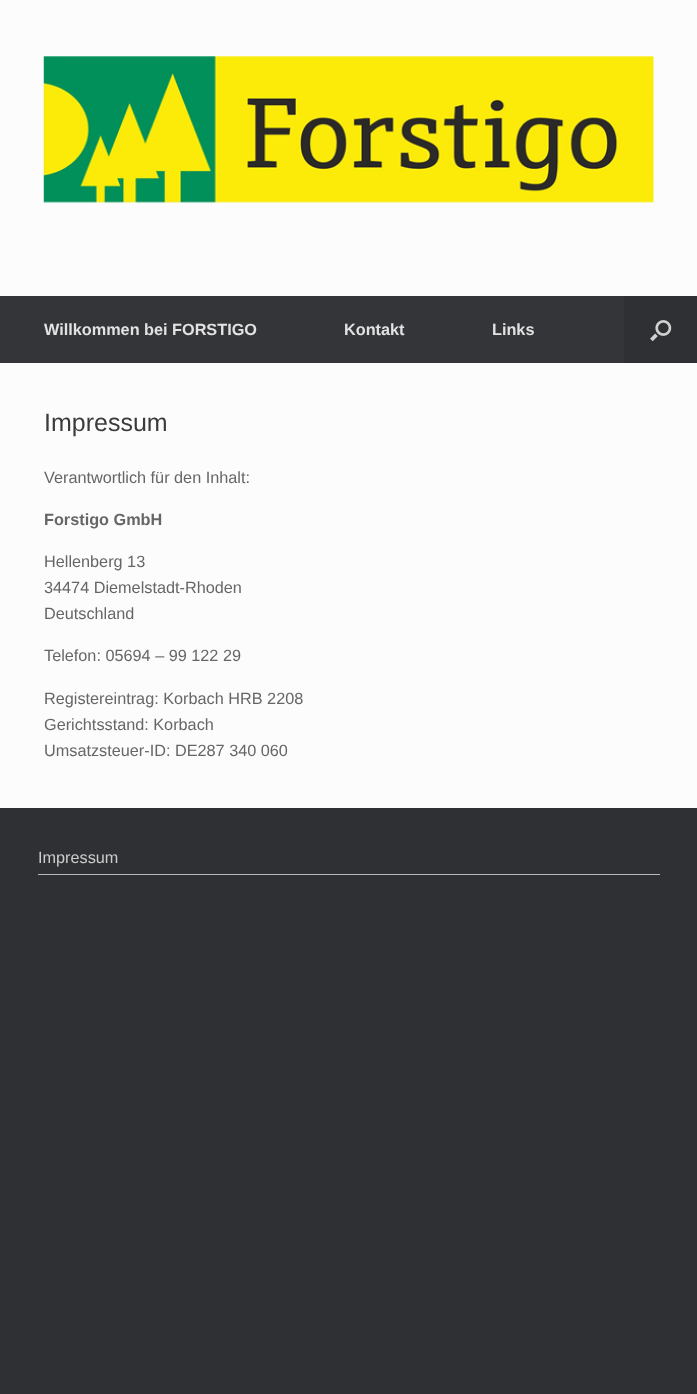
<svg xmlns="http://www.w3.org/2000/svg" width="697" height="1394">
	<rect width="100%" height="100%" fill="#2F3033" />
	<rect x="0" y="0" width="697" height="296" fill="#FCFCFC" />
	<image x="43" y="56" width="611" height="147" href="assets/img1.png" />
	<rect x="0" y="296" width="624" height="67" fill="#343538" />
	<g font-family="Liberation Sans" font-size="16.25" font-weight="700" fill="#E2E2E2">
		<text x="44" y="335">Willkommen bei FORSTIGO</text>
		<text x="344" y="335">Kontakt</text>
		<text x="492" y="335">Links</text>
	</g>
	<image x="650" y="320" width="22" height="22" href="assets/img2.png" />
	<rect x="0" y="363" width="697" height="445" fill="#FCFCFC" />
	<text x="44" y="431" font-family="Liberation Sans" font-size="25" fill="#3B3B3B">Impressum</text>
	<text x="44" y="483" font-family="Liberation Sans" font-size="16.25" fill="#666666">Verantwortlich für den Inhalt:</text>
	<text x="44" y="525" font-family="Liberation Sans" font-size="16.25" font-weight="700" fill="#666666">Forstigo GmbH</text>
	<g font-family="Liberation Sans" font-size="16.25" fill="#666666">
		<text x="44" y="567">Hellenberg 13</text>
		<text x="44" y="593">34474 Diemelstadt-Rhoden</text>
		<text x="44" y="619">Deutschland</text>
		<text x="44" y="661">Telefon: 05694 – 99 122 29</text>
		<text x="44" y="704">Registereintrag: Korbach HRB 2208</text>
		<text x="44" y="730">Gerichtsstand: Korbach</text>
		<text x="44" y="756">Umsatzsteuer-ID: DE287 340 060</text>
	</g>
	<rect x="38" y="874" width="622" height="1" fill="#B9B9B9" />
	<text x="38" y="863" font-family="Liberation Sans" font-size="16.25" fill="#CCCCCC">Impressum</text>
</svg>
